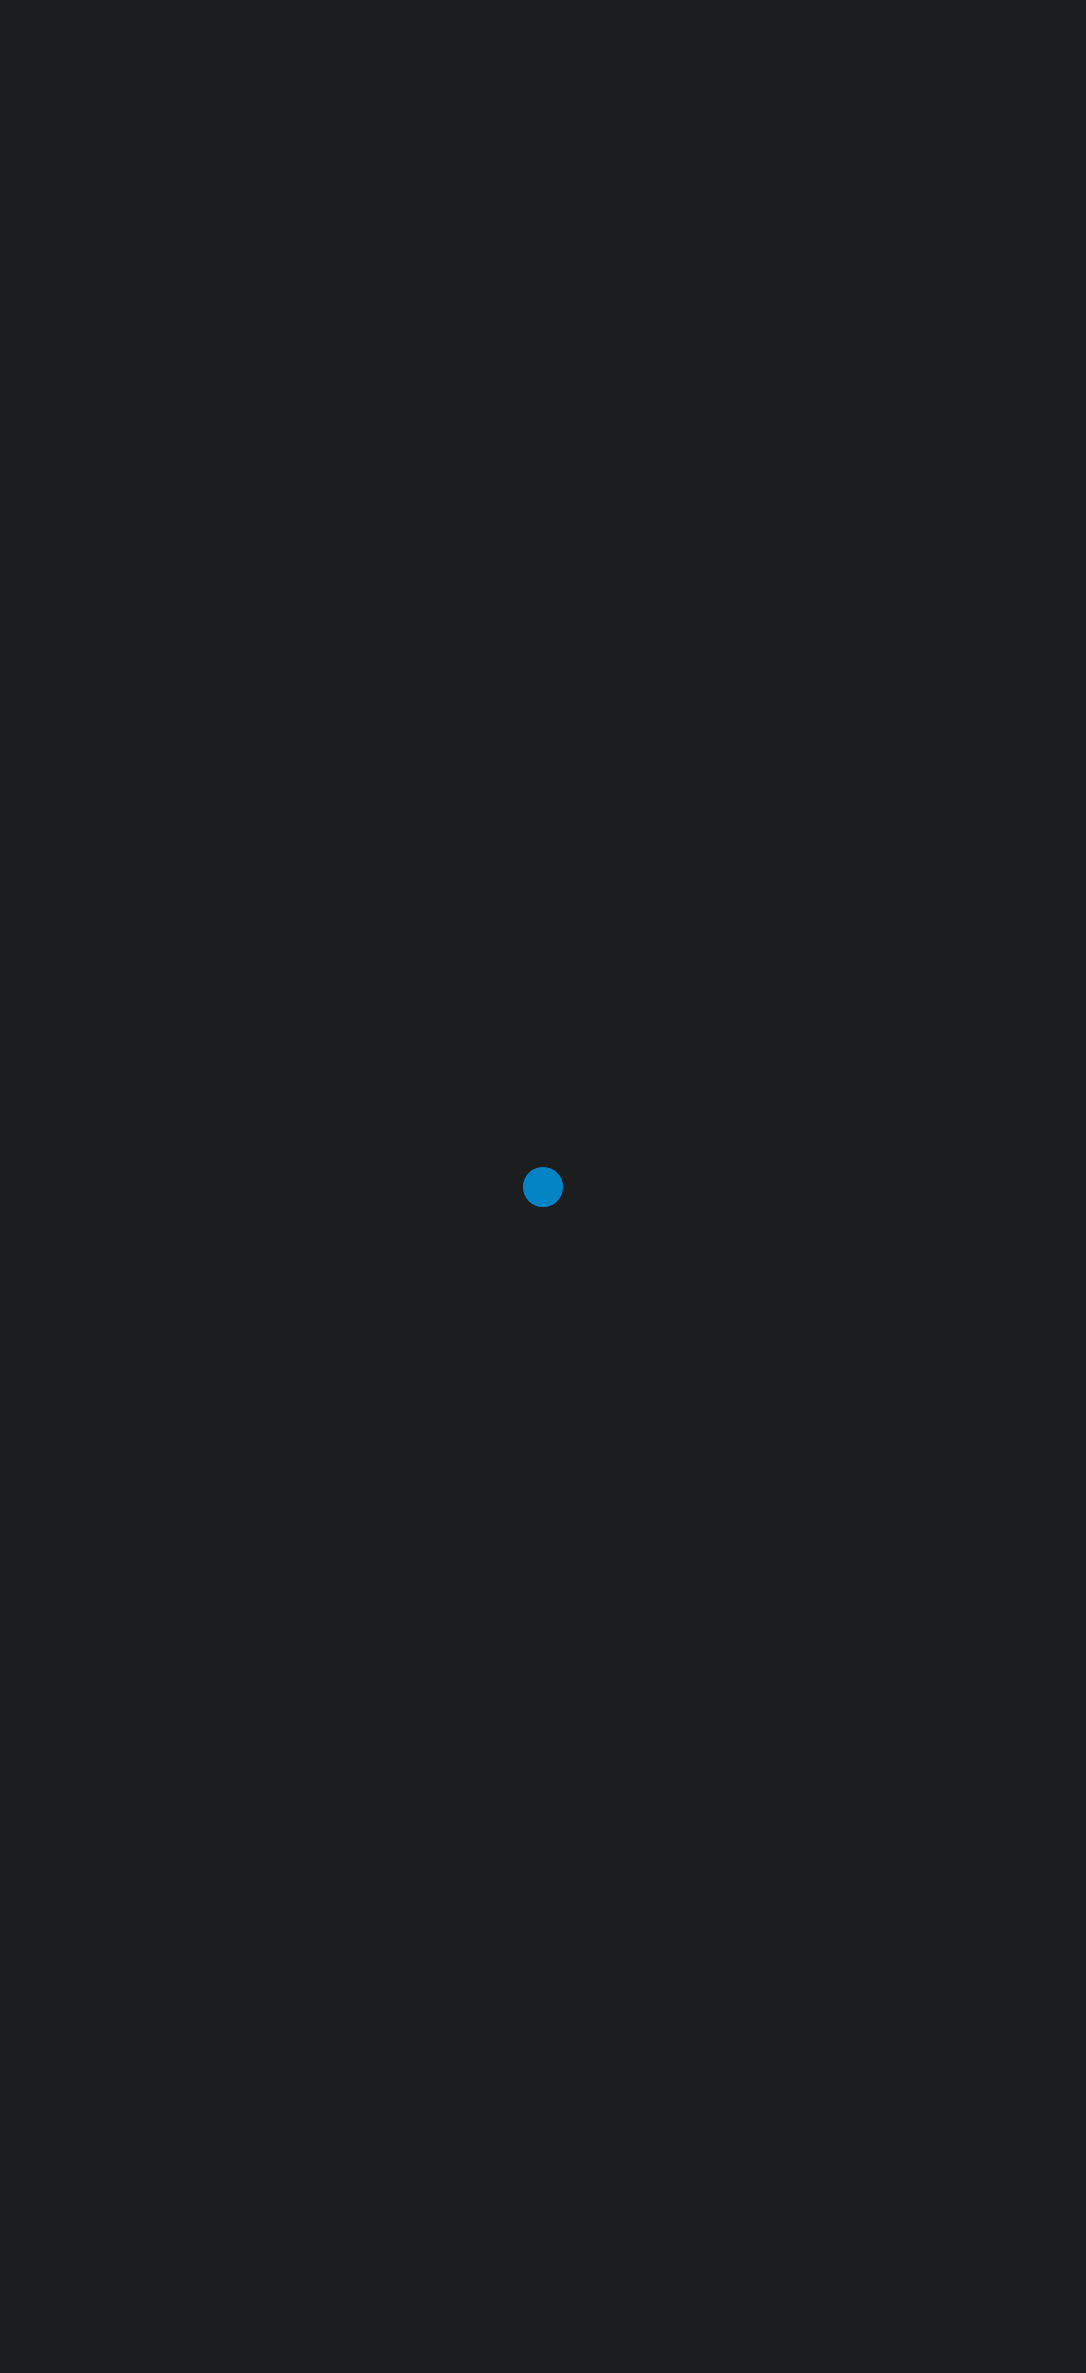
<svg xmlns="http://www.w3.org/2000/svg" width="1086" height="2373">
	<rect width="100%" height="100%" fill="#1B1D1E" />
	<circle cx="543" cy="1187" r="20" fill="#0B6695" />
	<circle cx="543" cy="1187" r="20" fill="#0097E5" fill-opacity="0.6" />
</svg>
